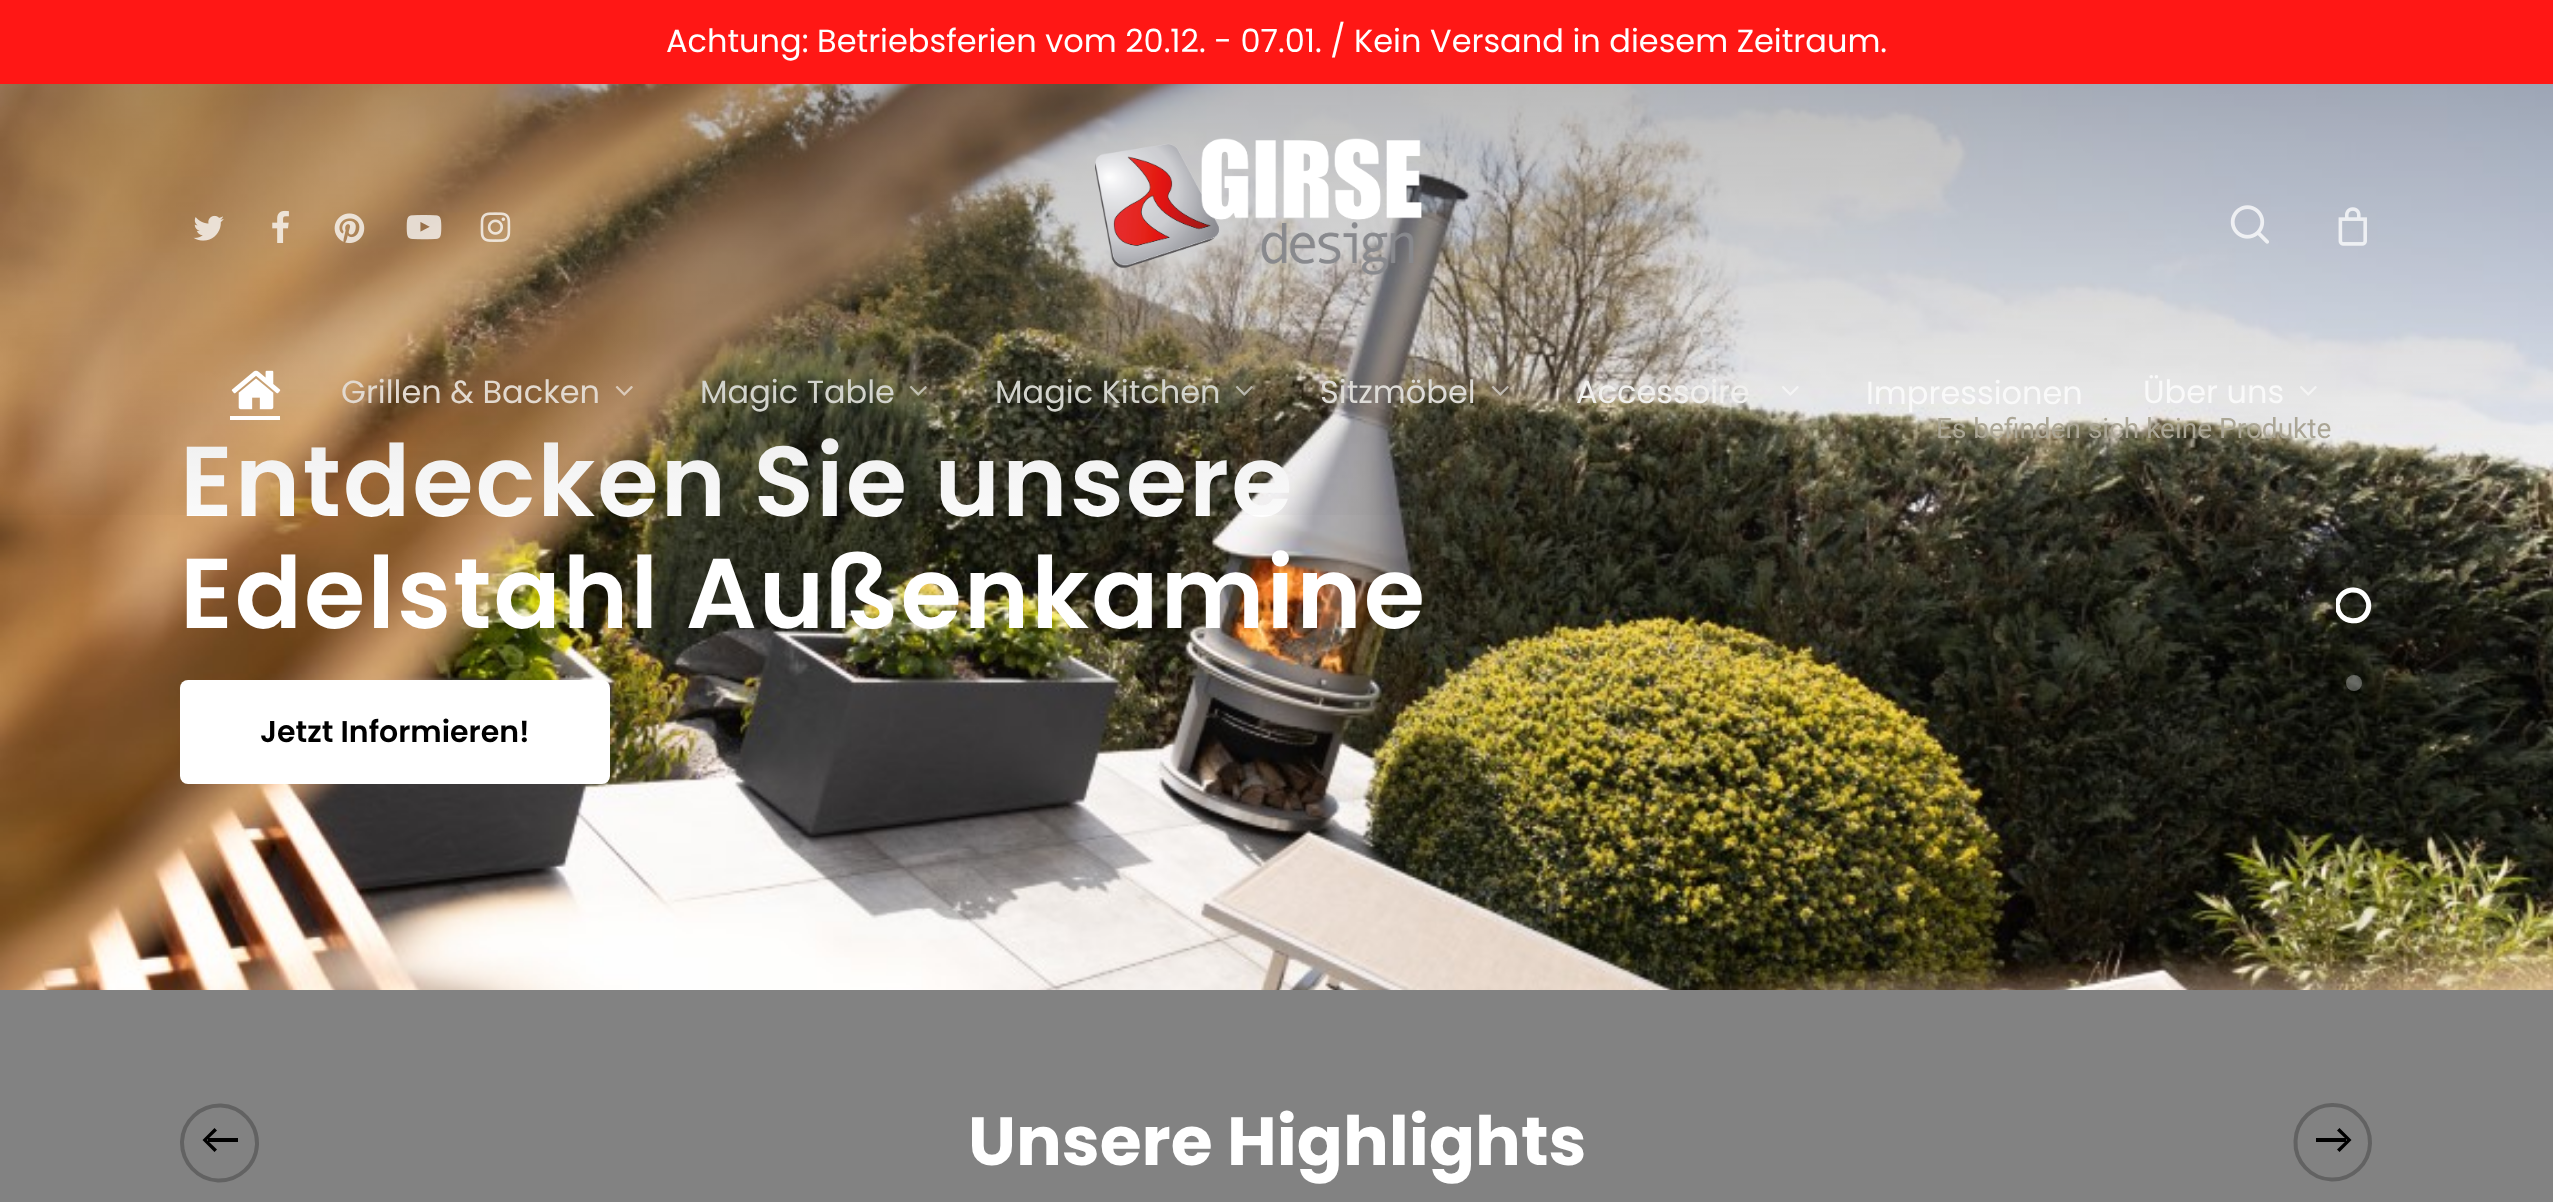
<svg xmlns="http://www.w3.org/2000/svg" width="2553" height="1202">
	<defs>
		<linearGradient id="g1" gradientUnits="userSpaceOnUse" x1="1277" y1="566" x2="1277" y2="0"><stop offset="0" stop-color="#FFFFFF" stop-opacity="0" /><stop offset="0.01" stop-color="#000000" stop-opacity="0" /><stop offset="0.16" stop-color="#000000" stop-opacity="0.04" /><stop offset="0.75" stop-color="#000000" stop-opacity="0.23" /><stop offset="1" stop-color="#000000" stop-opacity="0.33" /></linearGradient>
		<clipPath id="clip1"><rect x="2336" y="584" width="40" height="40" /></clipPath>
	</defs>
	<rect width="100%" height="100%" fill="#828282" />
	<rect x="0" y="0" width="2553" height="84" fill="#FF1715" />
	<text x="666" y="52" font-family="Poppins" font-size="32" fill="#FFFFFF">Achtung: Betriebsferien vom 20.12. - 07.01. / Kein Versand in diesem Zeitraum.</text>
	<image x="0" y="84" width="2553" height="906" href="assets/img16.png" />
	<text x="180" y="516" font-family="Poppins" font-size="99.25" font-weight="600" letter-spacing="2" fill="#FFFFFF">Entdecken Sie unsere</text>
	<rect x="0" y="84" width="2553" height="431" fill="url(#g1)" />
	<image x="231" y="370" width="50" height="40" href="assets/img1.png" />
	<rect x="230" y="416" width="50" height="4" fill="#FFFFFF" />
	<text x="341" y="403" font-family="Poppins" font-size="32" fill="#E2D9CF">Grillen &amp; Backen</text>
	<image x="615" y="386" width="18" height="10" href="assets/img2.png" />
	<text x="700" y="403" font-family="Poppins" font-size="32" fill="#D2D3CC">Magic Table</text>
	<image x="909" y="385" width="18" height="11" href="assets/img3.png" />
	<text x="995" y="403" font-family="Poppins" font-size="32" fill="#D2D3CC">Magic Kitchen</text>
	<image x="1235" y="385" width="18" height="11" href="assets/img4.png" />
	<text x="1320" y="403" font-family="Poppins" font-size="32" fill="#DDDBD7">Sitzmöbel</text>
	<image x="1491" y="385" width="18" height="11" href="assets/img5.png" />
	<text x="1576" y="403" font-family="Poppins" font-size="32" fill="#F1F0EE">Accessoire</text>
	<image x="1782" y="386" width="17" height="10" href="assets/img6.png" />
	<g font-family="Poppins" font-size="32" fill="#F9F9F9">
		<text x="1866" y="404">Impressionen</text>
		<text x="2143" y="403">Über uns</text>
	</g>
	<image x="2300" y="386" width="17" height="10" href="assets/img7.png" />
	<image x="193" y="215" width="31" height="26" href="assets/img8.png" />
	<image x="272" y="210" width="17" height="33" href="assets/img9.png" />
	<image x="334" y="213" width="31" height="31" href="assets/img10.png" />
	<image x="406" y="215" width="36" height="25" href="assets/img11.png" />
	<image x="480" y="212" width="31" height="30" href="assets/img12.png" />
	<image x="1095" y="138" width="327" height="137" href="assets/img13.png" />
	<image x="2230" y="205" width="39" height="39" href="assets/img14.png" />
	<image x="2338" y="207" width="29" height="39" href="assets/img15.png" />
	<text x="1936" y="438" font-family="Roboto" font-size="28" fill="#AAA595">Es befinden sich keine Produkte</text>
	<text x="180" y="628" font-family="Poppins" font-size="99.25" font-weight="600" letter-spacing="2" fill="#FFFFFF">Edelstahl Außenkamine</text>
	<rect x="180" y="680" width="430" height="104" rx="8" fill="#FFFFFF" />
	<text x="260" y="742" font-family="Poppins" font-size="30" font-weight="600" fill="#000000">Jetzt Informieren!</text>
	<g clip-path="url(#clip1)">
		<path d="M2337.5 603C2339 594.5 2347 588.5 2355.5 590C2364 591.5 2370 599.5 2368.5 608C2367 616.5 2359 622 2350.5 620.5C2342 619.5 2336.5 611.5 2337.5 603Z" fill="none" stroke="#FFFFFF" stroke-opacity="0.3" stroke-width="5" stroke-linecap="round" />
		<path d="M2337.5 603C2340 588 2361 585 2367 599C2368.5 601.5 2369 605 2368.5 608C2365.5 626.5 2338 624.5 2337.5 605.5" fill="none" stroke="#FFFFFF" stroke-width="5" stroke-linecap="round" />
	</g>
	<circle cx="2354" cy="683" r="8" fill="#FFFFFF" fill-opacity="0.3" />
	<rect x="208" y="1138" width="30" height="4" fill="#000000" />
	<path d="M202.5 1140L214.5 1152L217 1149.5L207 1140L217 1130.5L214.5 1128Z" fill="#000000" />
	<path d="M182 1141.5C183 1121 200 1105 221 1105.5C241.5 1106.5 257.5 1123.5 257 1144.5C256 1165 239 1181 218 1180.5C197.5 1179.5 181.5 1162.5 182 1141.5Z" fill="none" stroke="#626262" stroke-width="4" stroke-linecap="round" />
	<text x="968" y="1165" font-family="Poppins" font-size="68" font-weight="700" fill="#FFFFFF">Unsere Highlights</text>
	<rect x="2316" y="1138" width="30" height="4" fill="#000000" />
	<path d="M2351.5 1140L2339.5 1128L2337 1130.5L2347 1140L2337 1149.5L2339.5 1152Z" fill="#000000" />
	<path d="M2295.5 1141C2296 1120.5 2313.5 1104 2334 1105C2354.5 1105.5 2370.5 1123 2370 1143.5C2369.5 1164 2352 1180 2331.5 1179.5C2311 1179 2294.5 1161.5 2295.5 1141Z" fill="none" stroke="#626262" stroke-width="4" stroke-linecap="round" />
</svg>
